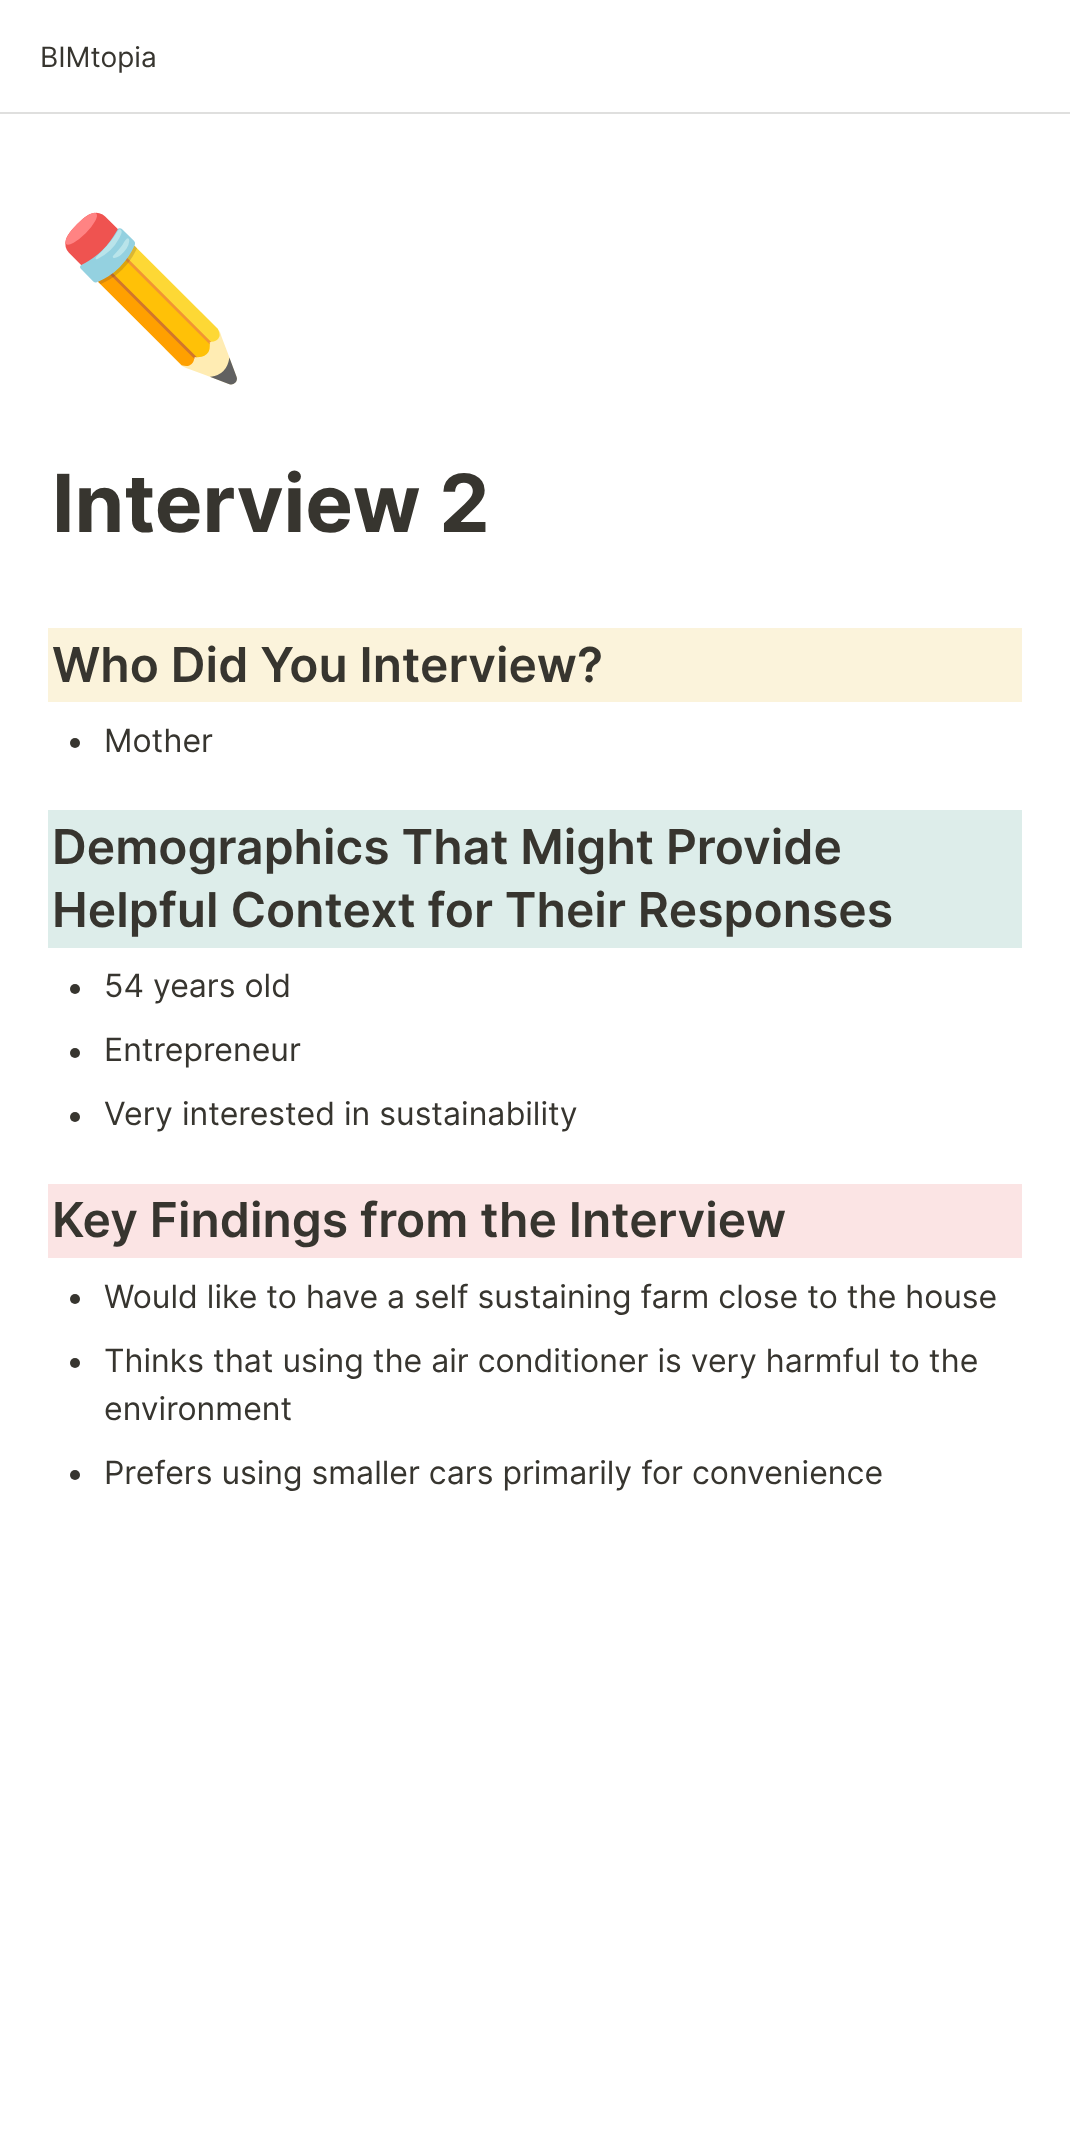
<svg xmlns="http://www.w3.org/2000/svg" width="1070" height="2146">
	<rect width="100%" height="100%" fill="#FFFFFF" />
	<rect x="0" y="112" width="1070" height="2" fill="#DFDFDE" />
	<text x="40" y="67" font-family="Inter" font-size="28" fill="#37352F">BIMtopia</text>
	<text x="54" y="352" font-family="Noto Color Emoji" font-size="156" fill="#37352F">✏️</text>
	<text x="52" y="532" font-family="Inter" font-size="80" font-weight="700" fill="#37352F">Interview 2</text>
	<rect x="48" y="628" width="974" height="74" fill="#FBF3DB" />
	<text x="52" y="682" font-family="Inter" font-size="48" font-weight="600" fill="#37352F">Who Did You Interview?</text>
	<circle cx="75" cy="743" r="5" fill="#37352F" />
	<text x="104" y="752" font-family="Inter" font-size="32" fill="#37352F">Mother</text>
	<rect x="48" y="810" width="974" height="138" fill="#DDEDEA" />
	<g font-family="Inter" font-size="48" font-weight="600" fill="#37352F">
		<text x="52" y="864">Demographics That Might Provide</text>
		<text x="52" y="927">Helpful Context for Their Responses</text>
	</g>
	<circle cx="75" cy="989" r="5" fill="#37352F" />
	<text x="104" y="997" font-family="Inter" font-size="32" fill="#37352F">54 years old</text>
	<circle cx="75" cy="1053" r="5" fill="#37352F" />
	<text x="104" y="1061" font-family="Inter" font-size="32" fill="#37352F">Entrepreneur</text>
	<circle cx="75" cy="1117" r="5" fill="#37352F" />
	<text x="104" y="1125" font-family="Inter" font-size="32" fill="#37352F">Very interested in sustainability</text>
	<rect x="48" y="1184" width="974" height="74" fill="#FBE4E4" />
	<text x="52" y="1237" font-family="Inter" font-size="48" font-weight="600" fill="#37352F">Key Findings from the Interview</text>
	<circle cx="75" cy="1299" r="5" fill="#37352F" />
	<text x="104" y="1308" font-family="Inter" font-size="32" fill="#37352F">Would like to have a self sustaining farm close to the house</text>
	<circle cx="75" cy="1363" r="5" fill="#37352F" />
	<g font-family="Inter" font-size="32" fill="#37352F">
		<text x="104" y="1372">Thinks that using the air conditioner is very harmful to the</text>
		<text x="104" y="1420">environment</text>
	</g>
	<circle cx="75" cy="1475" r="5" fill="#37352F" />
	<text x="104" y="1484" font-family="Inter" font-size="32" fill="#37352F">Prefers using smaller cars primarily for convenience</text>
</svg>
